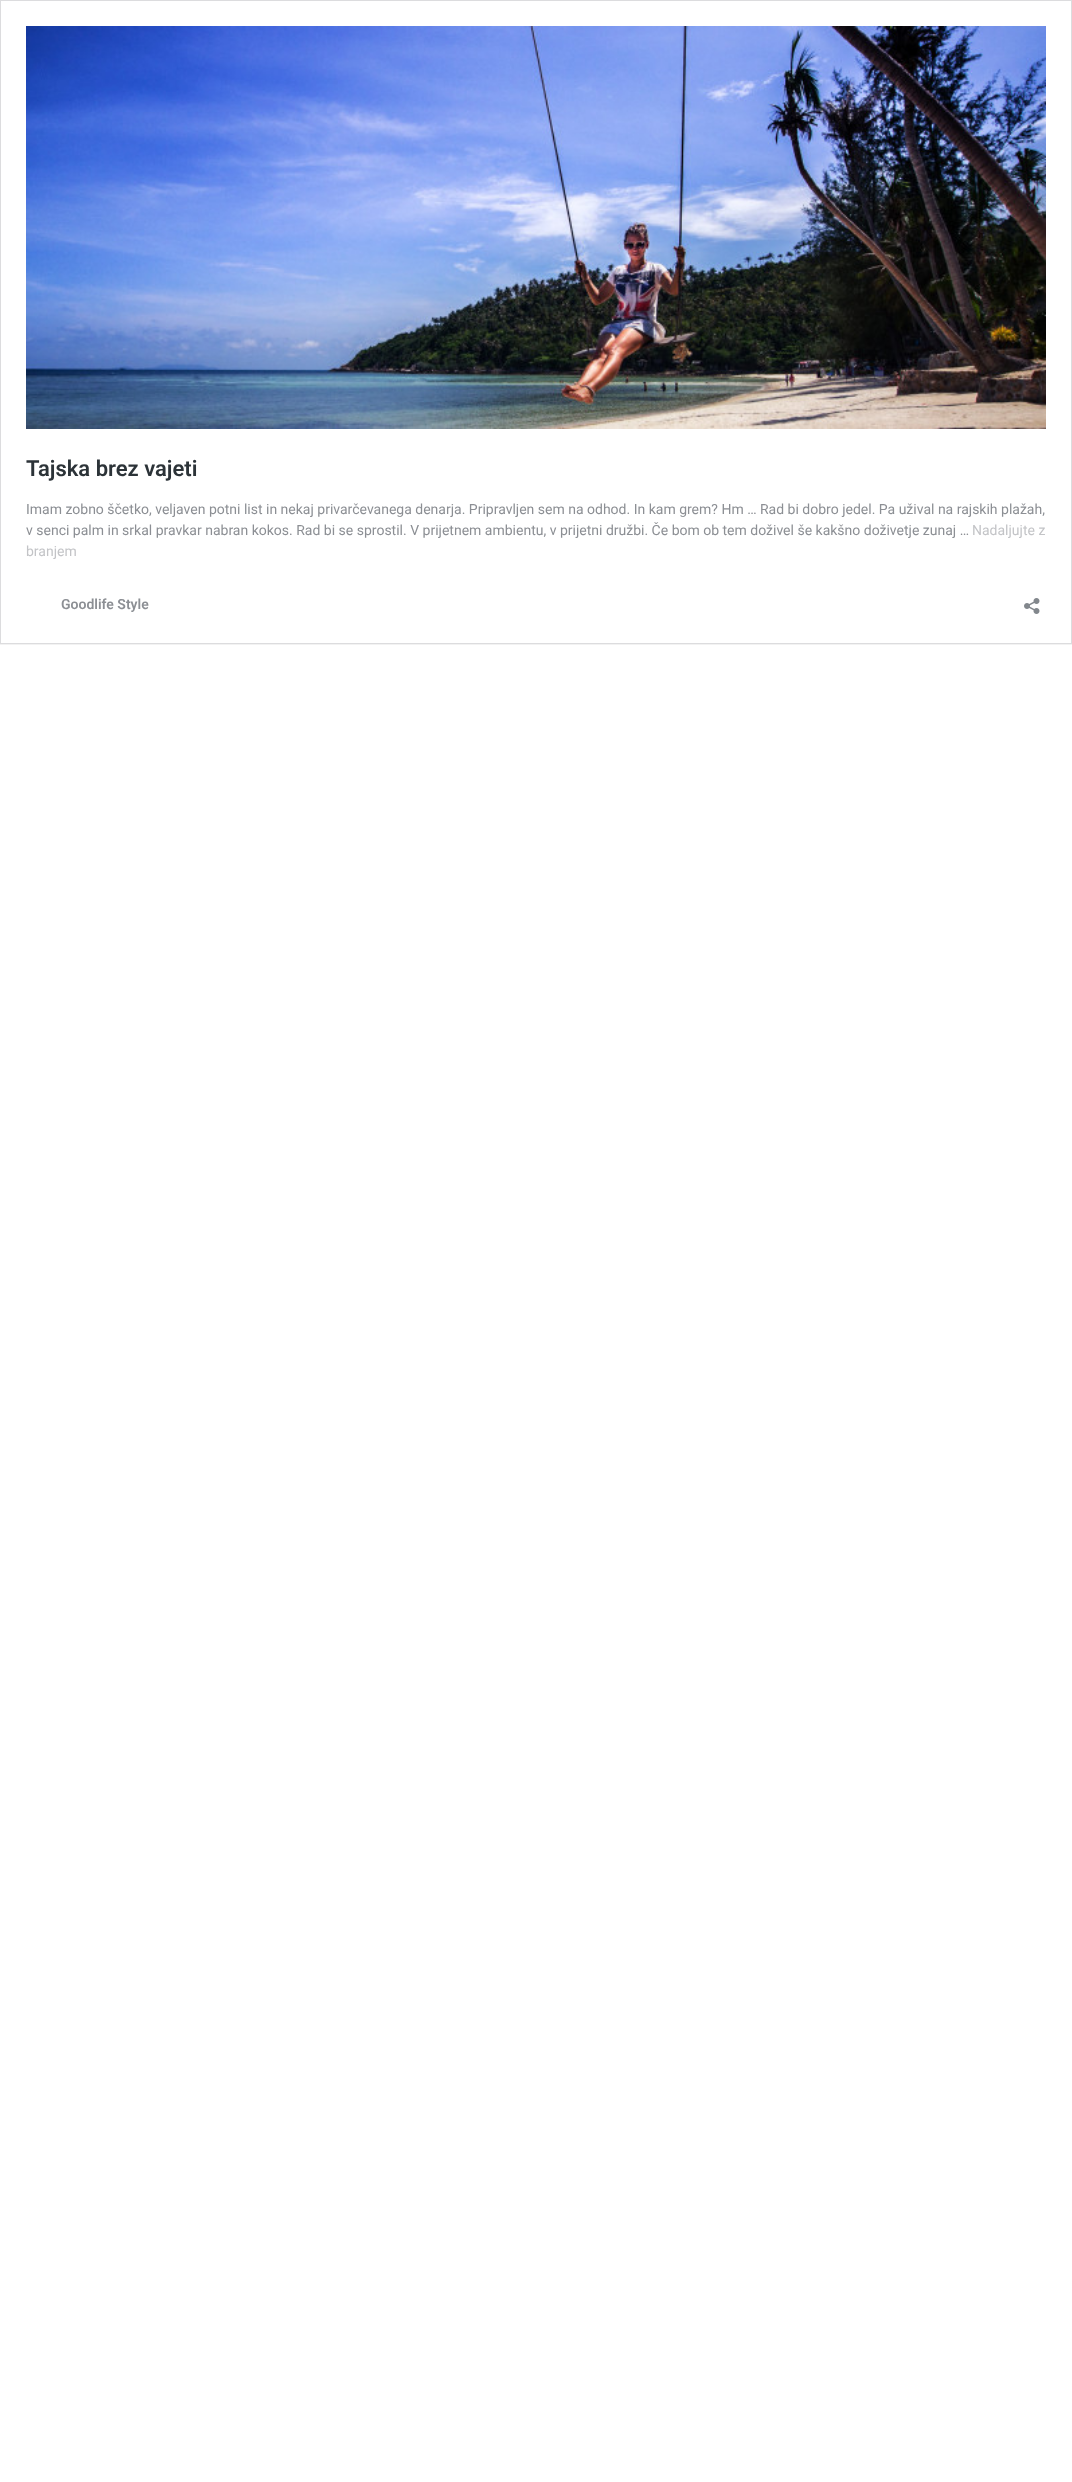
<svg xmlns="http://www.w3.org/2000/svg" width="1072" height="2482">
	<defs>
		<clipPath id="clip1"><rect x="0" y="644" width="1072" height="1" /></clipPath>
	</defs>
	<rect width="100%" height="100%" fill="#FFFFFF" />
	<g clip-path="url(#clip1)">
		<rect x="0" y="1" width="1072" height="644" fill="#000000" fill-opacity="0.05" filter="blur(0.5px)" />
	</g>
	<rect x="0.5" y="0.5" width="1071" height="643" fill="none" stroke="#DCDCDE" />
	<image x="26" y="26" width="1020" height="403" href="assets/img1.png" />
	<text x="26" y="476" font-family="Roboto" font-size="22" font-weight="600" fill="#2C3338">Tajska brez vajeti</text>
	<g font-family="Roboto" font-size="14" fill="#8C8F94">
		<text x="26" y="514">Imam zobno ščetko, veljaven potni list in nekaj privarčevanega denarja. Pripravljen sem na odhod. In kam grem? Hm … Rad bi dobro jedel. Pa užival na rajskih plažah,</text>
		<text x="26" y="535">v senci palm in srkal pravkar nabran kokos. Rad bi se sprostil. V prijetnem ambientu, v prijetni družbi. Če bom ob tem doživel še kakšno doživetje zunaj …</text>
	</g>
	<g font-family="Roboto" font-size="14" fill="#C3C4C7">
		<text x="972" y="535">Nadaljujte z</text>
		<text x="26" y="556">branjem</text>
	</g>
	<text x="61" y="609" font-family="Roboto" font-size="14" font-weight="600" fill="#8C8F94">Goodlife Style</text>
	<image x="1024" y="598" width="16" height="16" href="assets/img2.png" />
</svg>
